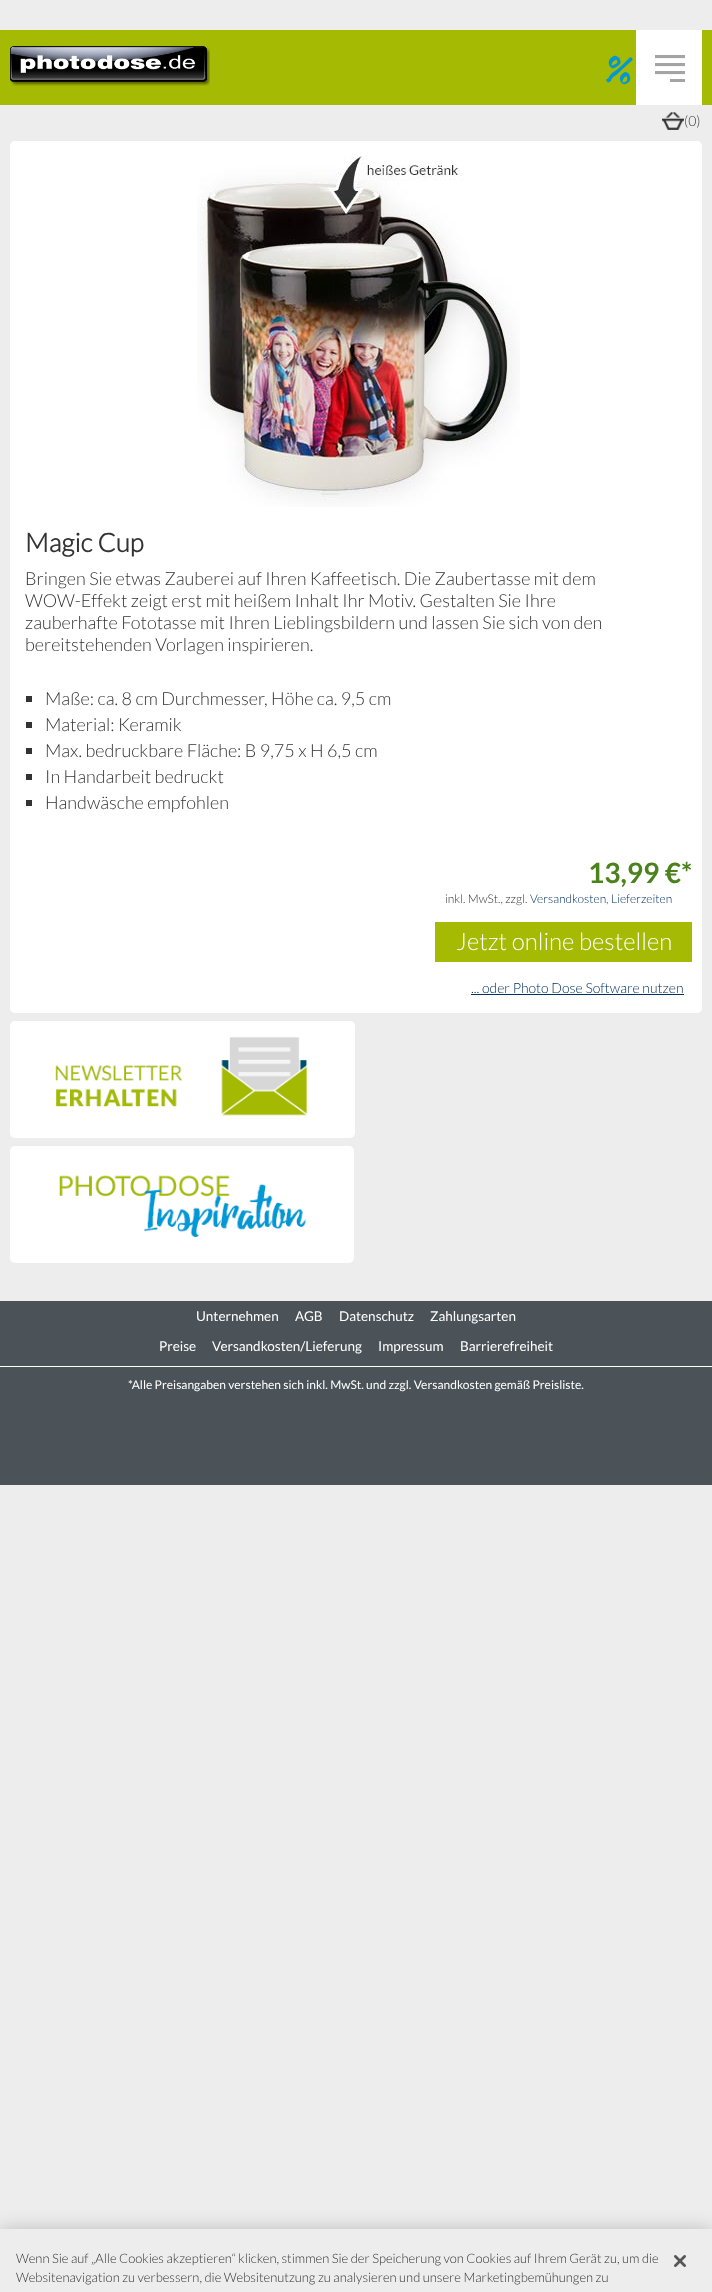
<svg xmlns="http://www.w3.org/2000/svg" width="712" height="2292">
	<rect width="100%" height="100%" fill="#EDEDED" />
	<rect x="0" y="30" width="712" height="75" fill="#A5BA02" />
	<image x="10" y="46" width="200" height="40" href="assets/img1.png" />
	<image x="606" y="55" width="27" height="30" href="assets/img2.png" />
	<rect x="636" y="30" width="66" height="75" fill="#FFFFFF" />
	<image x="655" y="55" width="30" height="27" href="assets/img3.png" />
	<image x="662" y="112" width="22" height="18" href="assets/img4.png" />
	<text x="684" y="126" font-family="Lato" font-size="14" font-weight="300" fill="#333333">(0)</text>
	<rect x="10" y="141" width="692" height="872" rx="5" fill="#FFFFFF" />
	<image x="197" y="152" width="323" height="355" href="assets/img5.png" />
	<text x="25" y="552" font-family="Lato" font-size="26" font-weight="700" fill="#333333">Magic Cup</text>
	<g font-family="Lato" font-size="18" font-weight="300" fill="#333333">
		<text x="25" y="585">Bringen Sie etwas Zauberei auf Ihren Kaffeetisch. Die Zaubertasse mit dem</text>
		<text x="25" y="607">WOW-Effekt zeigt erst mit heißem Inhalt Ihr Motiv. Gestalten Sie Ihre</text>
		<text x="25" y="629">zauberhafte Fototasse mit Ihren Lieblingsbildern und lassen Sie sich von den</text>
		<text x="25" y="651">bereitstehenden Vorlagen inspirieren.</text>
	</g>
	<rect x="26" y="696" width="6" height="6" fill="#333333" />
	<text x="45" y="705" font-family="Lato" font-size="18" font-weight="300" fill="#333333">Maße: ca. 8 cm Durchmesser, Höhe ca. 9,5 cm</text>
	<rect x="26" y="722" width="6" height="6" fill="#333333" />
	<text x="45" y="731" font-family="Lato" font-size="18" font-weight="300" fill="#333333">Material: Keramik</text>
	<rect x="26" y="748" width="6" height="6" fill="#333333" />
	<text x="45" y="757" font-family="Lato" font-size="18" font-weight="300" fill="#333333">Max. bedruckbare Fläche: B 9,75 x H 6,5 cm</text>
	<rect x="26" y="774" width="6" height="6" fill="#333333" />
	<text x="45" y="783" font-family="Lato" font-size="18" font-weight="300" fill="#333333">In Handarbeit bedruckt</text>
	<rect x="26" y="800" width="6" height="6" fill="#333333" />
	<text x="45" y="809" font-family="Lato" font-size="18" font-weight="300" fill="#333333">Handwäsche empfohlen</text>
	<text x="588" y="883" font-family="'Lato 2'" font-size="28" font-weight="700" fill="#4B821D">13,99 €*</text>
	<text x="445" y="903" font-family="Lato" font-size="12" font-weight="300" fill="#333333">inkl. MwSt., zzgl.</text>
	<text x="530" y="903" font-family="Lato" font-size="12" font-weight="300" fill="#003264">Versandkosten</text>
	<text x="606" y="903" font-family="Lato" font-size="12" font-weight="300" fill="#333333">,</text>
	<text x="611" y="903" font-family="Lato" font-size="12" font-weight="300" fill="#003264">Lieferzeiten</text>
	<rect x="435" y="922" width="257" height="40" fill="#A5BA02" />
	<text x="456" y="950" font-family="Lato" font-size="24" font-weight="300" fill="#FFFFFF">Jetzt online bestellen</text>
	<text x="471" y="993" font-family="Lato" font-size="14" font-weight="300" fill="#003264">... oder Photo Dose Software nutzen</text>
	<rect x="471" y="994" width="213" height="1" fill="#003264" />
	<rect x="10" y="1021" width="345" height="117" rx="5" fill="#FFFFFF" />
	<image x="55" y="1037" width="253" height="79" href="assets/img6.png" />
	<rect x="10" y="1146" width="344" height="117" rx="5" fill="#FFFFFF" />
	<image x="59" y="1175" width="248" height="62" href="assets/img7.png" />
	<rect x="0" y="1301" width="712" height="184" fill="#4B5358" />
	<rect x="0" y="1366" width="712" height="1" fill="#FFFFFF" />
	<g font-family="Lato" font-size="13.5" fill="#FFFFFF">
		<text x="196" y="1321">Unternehmen</text>
		<text x="295" y="1321">AGB</text>
		<text x="339" y="1321">Datenschutz</text>
		<text x="430" y="1321">Zahlungsarten</text>
		<text x="159" y="1351">Preise</text>
		<text x="212" y="1351">Versandkosten/Lieferung</text>
		<text x="378" y="1351">Impressum</text>
		<text x="460" y="1351">Barrierefreiheit</text>
	</g>
	<text x="128" y="1389" font-family="Lato" font-size="12" fill="#FFFFFF">*Alle Preisangaben verstehen sich inkl. MwSt. und zzgl. Versandkosten gemäß Preisliste.</text>
	<rect x="0" y="2229" width="712" height="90" fill="#000000" fill-opacity="0.2" filter="blur(9px)" />
	<rect x="0" y="2229" width="712" height="63" fill="#EDEDED" />
	<g font-family="Lato" font-size="13" font-weight="300" fill="#333333">
		<text x="16" y="2263">Wenn Sie auf „Alle Cookies akzeptieren“ klicken, stimmen Sie der Speicherung von Cookies auf Ihrem Gerät zu, um die</text>
		<text x="16" y="2282">Websitenavigation zu verbessern, die Websitenutzung zu analysieren und unsere Marketingbemühungen zu</text>
	</g>
	<image x="674" y="2255" width="12" height="12" href="assets/img8.png" />
</svg>
